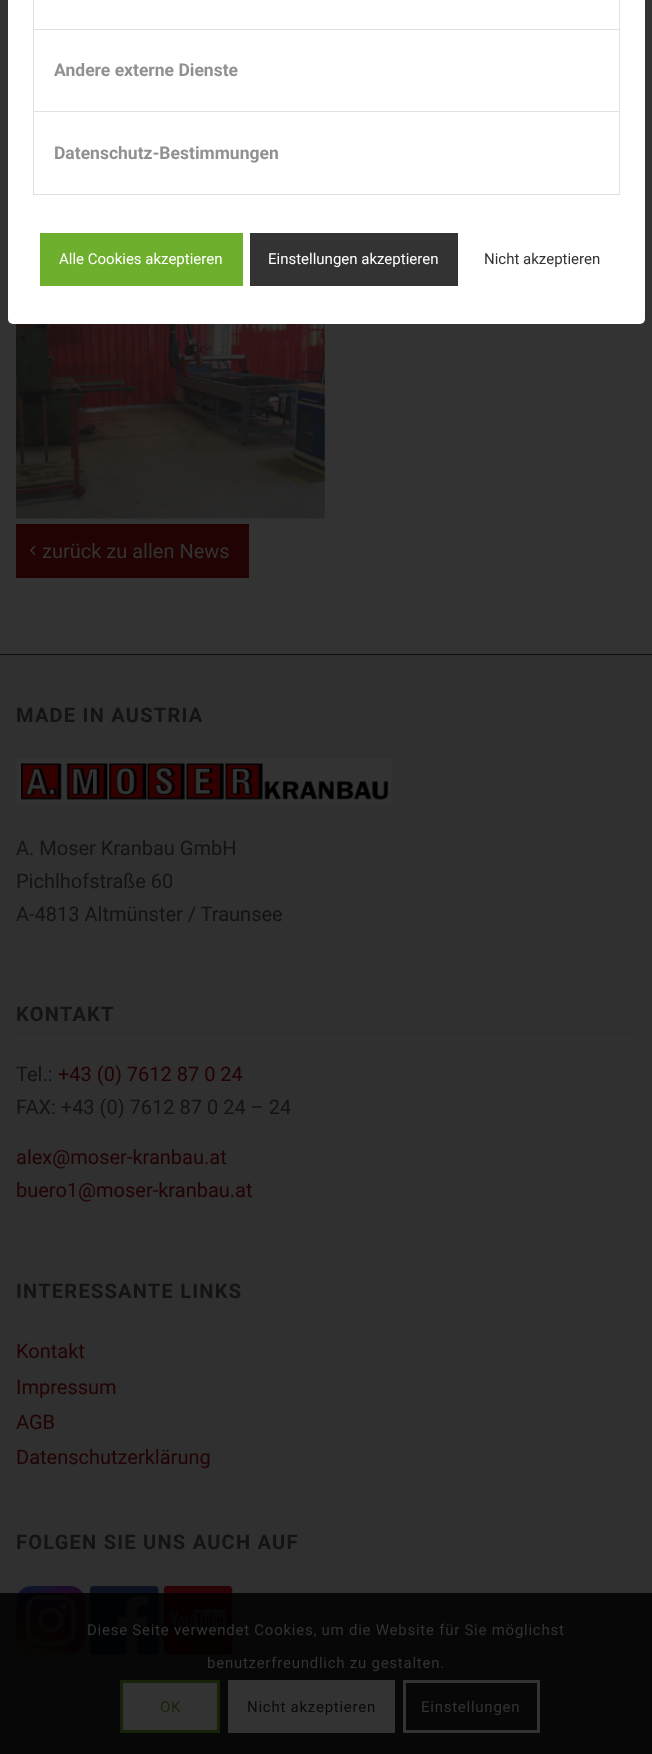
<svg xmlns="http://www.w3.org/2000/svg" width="652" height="1754">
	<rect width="100%" height="100%" fill="#333333" />
	<rect x="8" y="-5" width="637" height="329" rx="5" fill="#FFFFFF" />
	<rect x="619" y="0" width="1" height="195" fill="#E1E1E1" />
	<rect x="33" y="194" width="587" height="1" fill="#E1E1E1" />
	<rect x="33" y="0" width="1" height="195" fill="#E1E1E1" />
	<rect x="34" y="29" width="585" height="1" fill="#E1E1E1" />
	<rect x="34" y="111" width="585" height="1" fill="#E1E1E1" />
	<g font-family="Roboto" font-size="17.5" font-weight="700" fill="#919191">
		<text x="54" y="76">Andere externe Dienste</text>
		<text x="54" y="159">Datenschutz-Bestimmungen</text>
	</g>
	<rect x="40" y="233" width="203" height="53" fill="#6EAF2D" />
	<text x="59" y="264" font-family="Roboto" font-size="15" fill="#FFFFFF">Alle Cookies akzeptieren</text>
	<rect x="250" y="233" width="208" height="53" fill="#333333" />
	<text x="268" y="264" font-family="Roboto" font-size="15" fill="#FFFFFF">Einstellungen akzeptieren</text>
	<text x="484" y="264" font-family="Roboto" font-size="15" fill="#333333">Nicht akzeptieren</text>
	<image x="16" y="324" width="309" height="195" href="assets/img1.png" />
	<rect x="16" y="524" width="233" height="54" fill="#220303" />
	<rect x="16" y="576" width="233" height="1" fill="#1B0000" />
	<image x="30" y="545" width="6" height="11" href="assets/img2.png" />
	<text x="42" y="558" font-family="Roboto" font-size="20" fill="#333333">zurück zu allen News</text>
	<rect x="0" y="655" width="652" height="1099" fill="#303030" />
	<rect x="0" y="654" width="652" height="1" fill="#0E0E0E" />
	<rect x="16" y="691" width="620" height="1" fill="#333333" />
	<rect x="16" y="739" width="620" height="1" fill="#333333" />
	<text x="16" y="722" font-family="Roboto" font-size="20" font-weight="700" letter-spacing="1.25" fill="#131313">MADE IN AUSTRIA</text>
	<image x="16" y="758" width="376" height="47" href="assets/img3.png" />
	<g font-family="Roboto" font-size="20" fill="#131313">
		<text x="16" y="855">A. Moser Kranbau GmbH</text>
		<text x="16" y="888">Pichlhofstraße 60</text>
		<text x="16" y="921">A-4813 Altmünster / Traunsee</text>
	</g>
	<rect x="16" y="990" width="620" height="1" fill="#333333" />
	<rect x="16" y="1039" width="620" height="1" fill="#333333" />
	<text x="16" y="1021" font-family="Roboto" font-size="20" font-weight="700" letter-spacing="1.25" fill="#131313">KONTAKT</text>
	<text x="16" y="1081" font-family="Roboto" font-size="20" fill="#131313">Tel.:</text>
	<text x="58" y="1081" font-family="Roboto" font-size="20" fill="#220303">+43 (0) 7612 87 0 24</text>
	<text x="16" y="1114" font-family="Roboto" font-size="20" fill="#131313">FAX: +43 (0) 7612 87 0 24 – 24</text>
	<g font-family="Roboto" font-size="20" fill="#220303">
		<text x="16" y="1164">alex@moser-kranbau.at</text>
		<text x="16" y="1197">buero1@moser-kranbau.at</text>
	</g>
	<rect x="16" y="1266" width="620" height="1" fill="#333333" />
	<rect x="16" y="1315" width="620" height="1" fill="#333333" />
	<text x="16" y="1298" font-family="Roboto" font-size="20" font-weight="700" letter-spacing="1.25" fill="#131313">INTERESSANTE LINKS</text>
	<g font-family="Roboto" font-size="20" fill="#220303">
		<text x="16" y="1358">Kontakt</text>
		<text x="16" y="1394">Impressum</text>
		<text x="16" y="1429">AGB</text>
		<text x="16" y="1464">Datenschutzerklärung</text>
	</g>
	<rect x="16" y="1518" width="620" height="1" fill="#333333" />
	<rect x="16" y="1566" width="620" height="1" fill="#333333" />
	<text x="16" y="1549" font-family="Roboto" font-size="20" font-weight="700" letter-spacing="1.25" fill="#131313">FOLGEN SIE UNS AUCH AUF</text>
	<image x="16" y="1585" width="69" height="70" href="assets/img4.png" />
	<image x="90" y="1585" width="69" height="70" href="assets/img5.png" />
	<image x="163" y="1585" width="70" height="70" href="assets/img6.png" />
	<rect x="0" y="1593" width="652" height="161" fill="#000000" fill-opacity="0.85" />
	<g font-family="Roboto" font-size="15" letter-spacing="0.75" fill="#333333">
		<text x="87" y="1635">Diese Seite verwendet Cookies, um die Website für Sie möglichst</text>
		<text x="207" y="1668">benutzerfreundlich zu gestalten.</text>
	</g>
	<rect x="121.5" y="1681.5" width="97" height="50" fill="#333333" stroke="#162309" stroke-width="3" />
	<text x="160" y="1712" font-family="Roboto" font-size="15" letter-spacing="0.75" fill="#162309">OK</text>
	<rect x="228" y="1680" width="167" height="53" fill="#333333" />
	<text x="247" y="1712" font-family="Roboto" font-size="15" letter-spacing="0.75" fill="#0A0A0A">Nicht akzeptieren</text>
	<rect x="404.5" y="1681.5" width="134" height="50" fill="none" stroke="#333333" stroke-width="3" />
	<text x="421" y="1712" font-family="Roboto" font-size="15" letter-spacing="0.75" fill="#333333">Einstellungen</text>
</svg>
